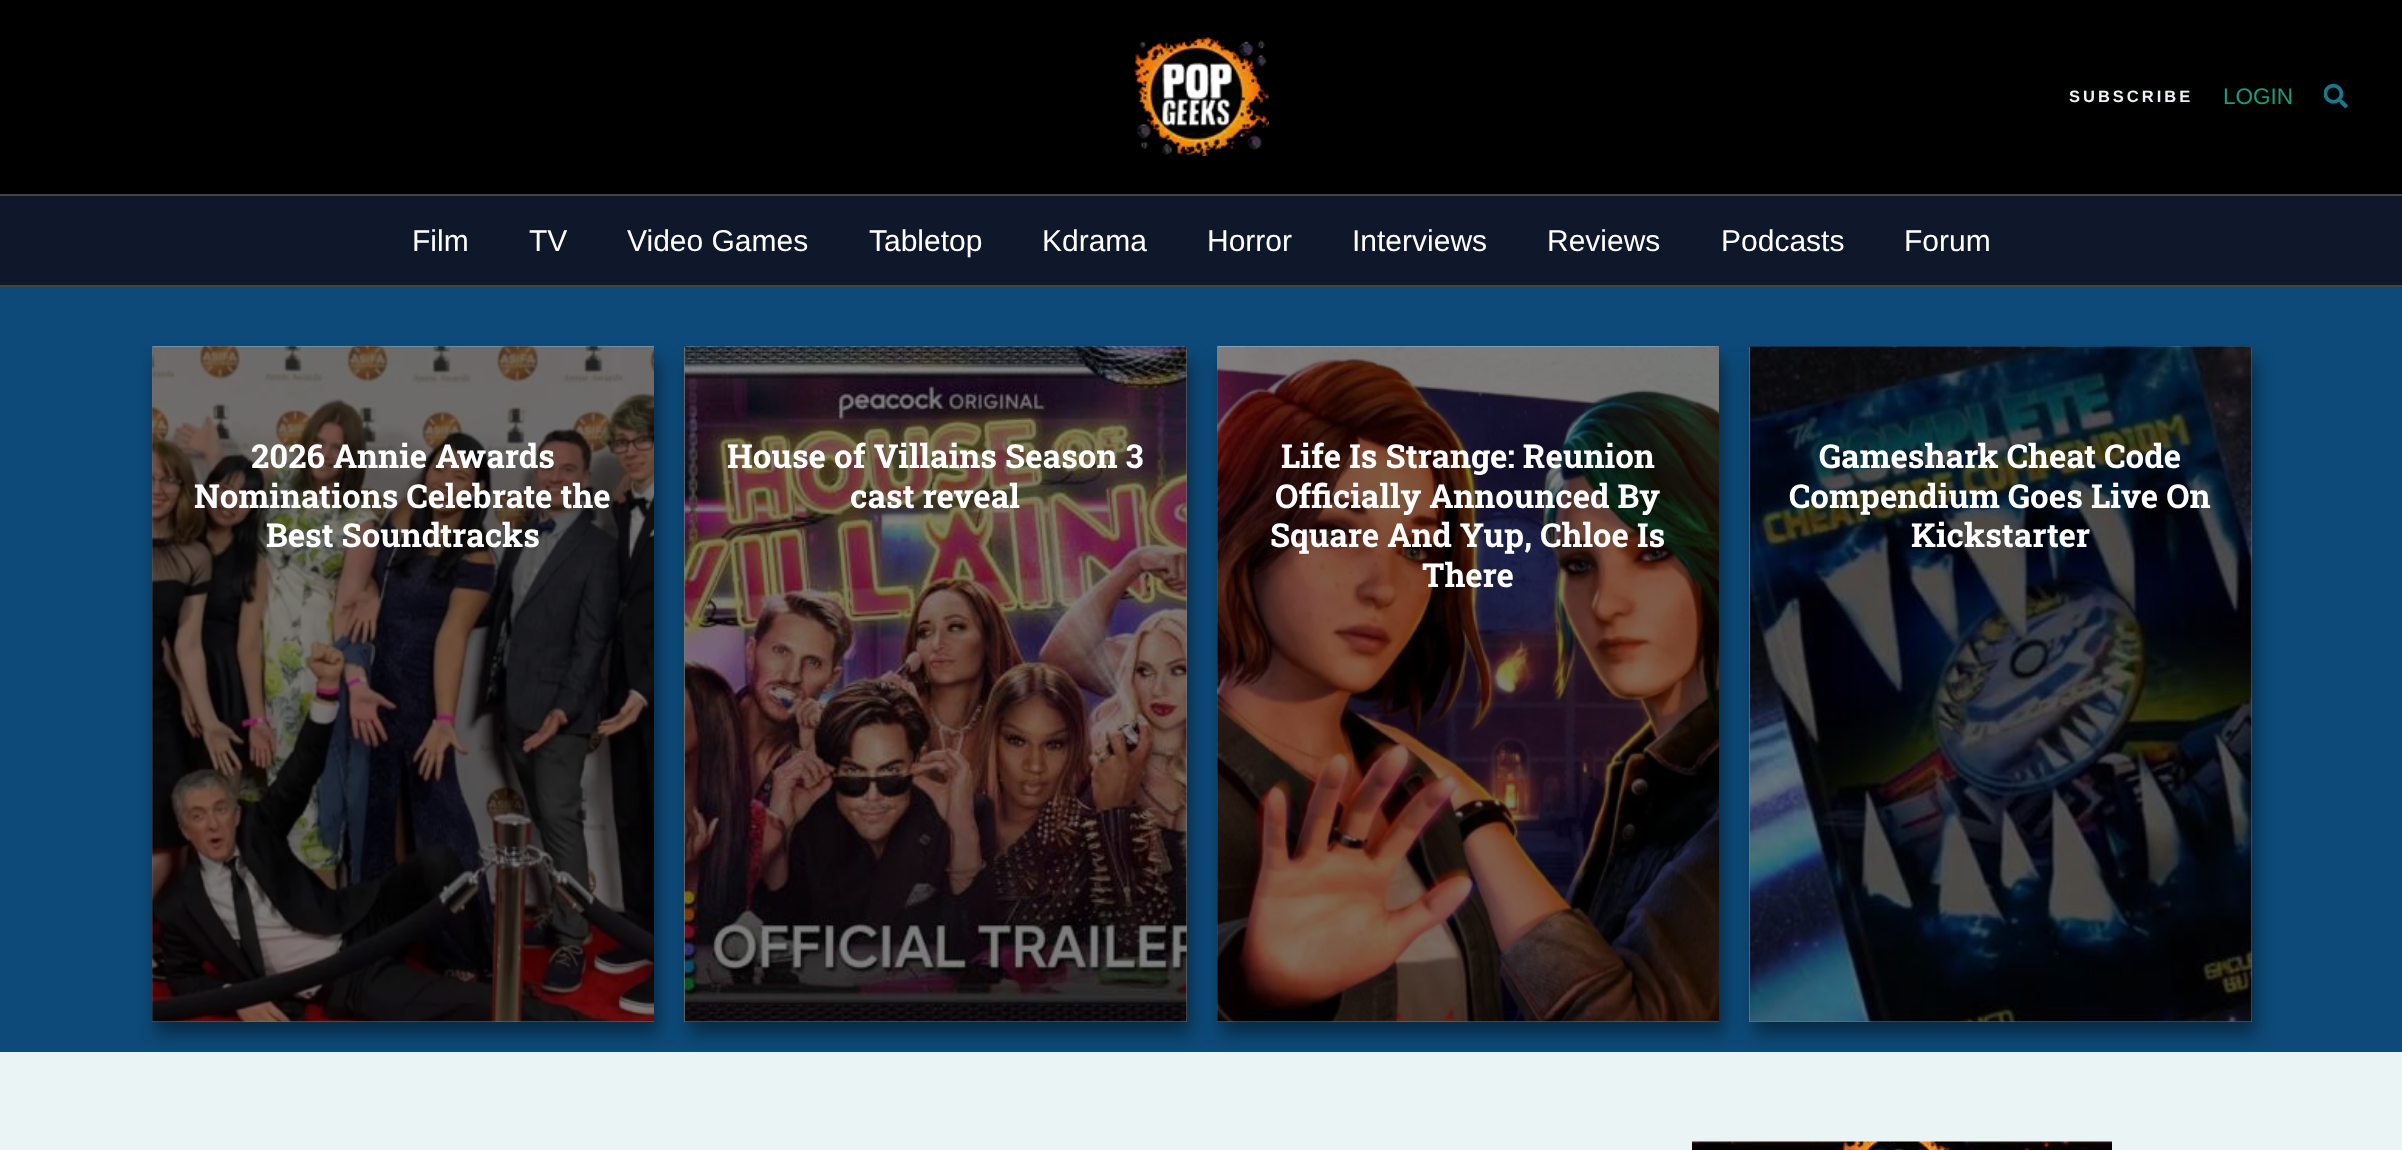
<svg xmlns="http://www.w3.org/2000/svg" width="2402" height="1150">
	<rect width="100%" height="100%" fill="#EBF4F5" />
	<rect x="0" y="0" width="2402" height="194" fill="#000000" />
	<rect x="0" y="194" width="2402" height="2" fill="#444444" />
	<image x="1134" y="37" width="135" height="119" href="assets/img1.png" />
	<text x="2069" y="102" font-family="Liberation Sans" font-size="16.5" font-weight="700" letter-spacing="3" fill="#EBF4F5">SUBSCRIBE</text>
	<text x="2223" y="104" font-family="Liberation Sans" font-size="22.5" fill="#1A9C7C">LOGIN</text>
	<image x="2324" y="83" width="24" height="26" href="assets/img2.png" />
	<rect x="0" y="196" width="2402" height="89" fill="#0F172A" />
	<rect x="0" y="285" width="2402" height="2" fill="#444444" />
	<g font-family="Liberation Sans" font-size="30" fill="#FFFFFF">
		<text x="412" y="251">Film</text>
		<text x="529" y="251">TV</text>
		<text x="627" y="251">Video Games</text>
		<text x="869" y="251">Tabletop</text>
		<text x="1042" y="251">Kdrama</text>
		<text x="1207" y="251">Horror</text>
		<text x="1352" y="251">Interviews</text>
		<text x="1547" y="251">Reviews</text>
		<text x="1721" y="251">Podcasts</text>
		<text x="1904" y="251">Forum</text>
	</g>
	<rect x="0" y="287" width="2402" height="765" fill="#0D4A79" />
	<rect x="156" y="359" width="503" height="675" fill="#000000" fill-opacity="0.44" filter="blur(9px)" />
	<rect x="152" y="347" width="502" height="675" fill="#F6F6F6" />
	<image x="152" y="346" width="502" height="676" href="assets/img3.png" />
	<rect x="152" y="347" width="502" height="675" fill="#000000" fill-opacity="0.5" />
	<g font-family="Roboto Slab" font-size="33" font-weight="700" fill="#FFFFFF">
		<text x="251" y="468">2026 Annie Awards</text>
		<text x="194" y="508">Nominations Celebrate the</text>
		<text x="266" y="547">Best Soundtracks</text>
	</g>
	<rect x="689" y="359" width="502" height="675" fill="#000000" fill-opacity="0.44" filter="blur(9px)" />
	<rect x="684" y="347" width="503" height="675" fill="#F6F6F6" />
	<image x="684" y="346" width="503" height="676" href="assets/img4.png" />
	<rect x="684" y="347" width="503" height="675" fill="#000000" fill-opacity="0.5" />
	<g font-family="Roboto Slab" font-size="33" font-weight="700" fill="#FFFFFF">
		<text x="727" y="468">House of Villains Season 3</text>
		<text x="850" y="508">cast reveal</text>
	</g>
	<rect x="1221" y="359" width="503" height="675" fill="#000000" fill-opacity="0.44" filter="blur(9px)" />
	<rect x="1217" y="347" width="502" height="675" fill="#F6F6F6" />
	<image x="1217" y="346" width="502" height="676" href="assets/img5.png" />
	<rect x="1217" y="347" width="502" height="675" fill="#000000" fill-opacity="0.5" />
	<g font-family="Roboto Slab" font-size="33" font-weight="700" fill="#FFFFFF">
		<text x="1281" y="468">Life Is Strange: Reunion</text>
		<text x="1275" y="508">Officially Announced By</text>
		<text x="1270" y="547">Square And Yup, Chloe Is</text>
		<text x="1422" y="587">There</text>
	</g>
	<rect x="1754" y="359" width="502" height="675" fill="#000000" fill-opacity="0.44" filter="blur(9px)" />
	<rect x="1749" y="347" width="503" height="675" fill="#F6F6F6" />
	<image x="1749" y="346" width="503" height="676" href="assets/img6.png" />
	<rect x="1749" y="347" width="503" height="675" fill="#000000" fill-opacity="0.5" />
	<g font-family="Roboto Slab" font-size="33" font-weight="700" fill="#FFFFFF">
		<text x="1819" y="468">Gameshark Cheat Code</text>
		<text x="1789" y="508">Compendium Goes Live On</text>
		<text x="1911" y="547">Kickstarter</text>
	</g>
	<image x="1692" y="1141" width="420" height="9" href="assets/img7.png" />
</svg>
